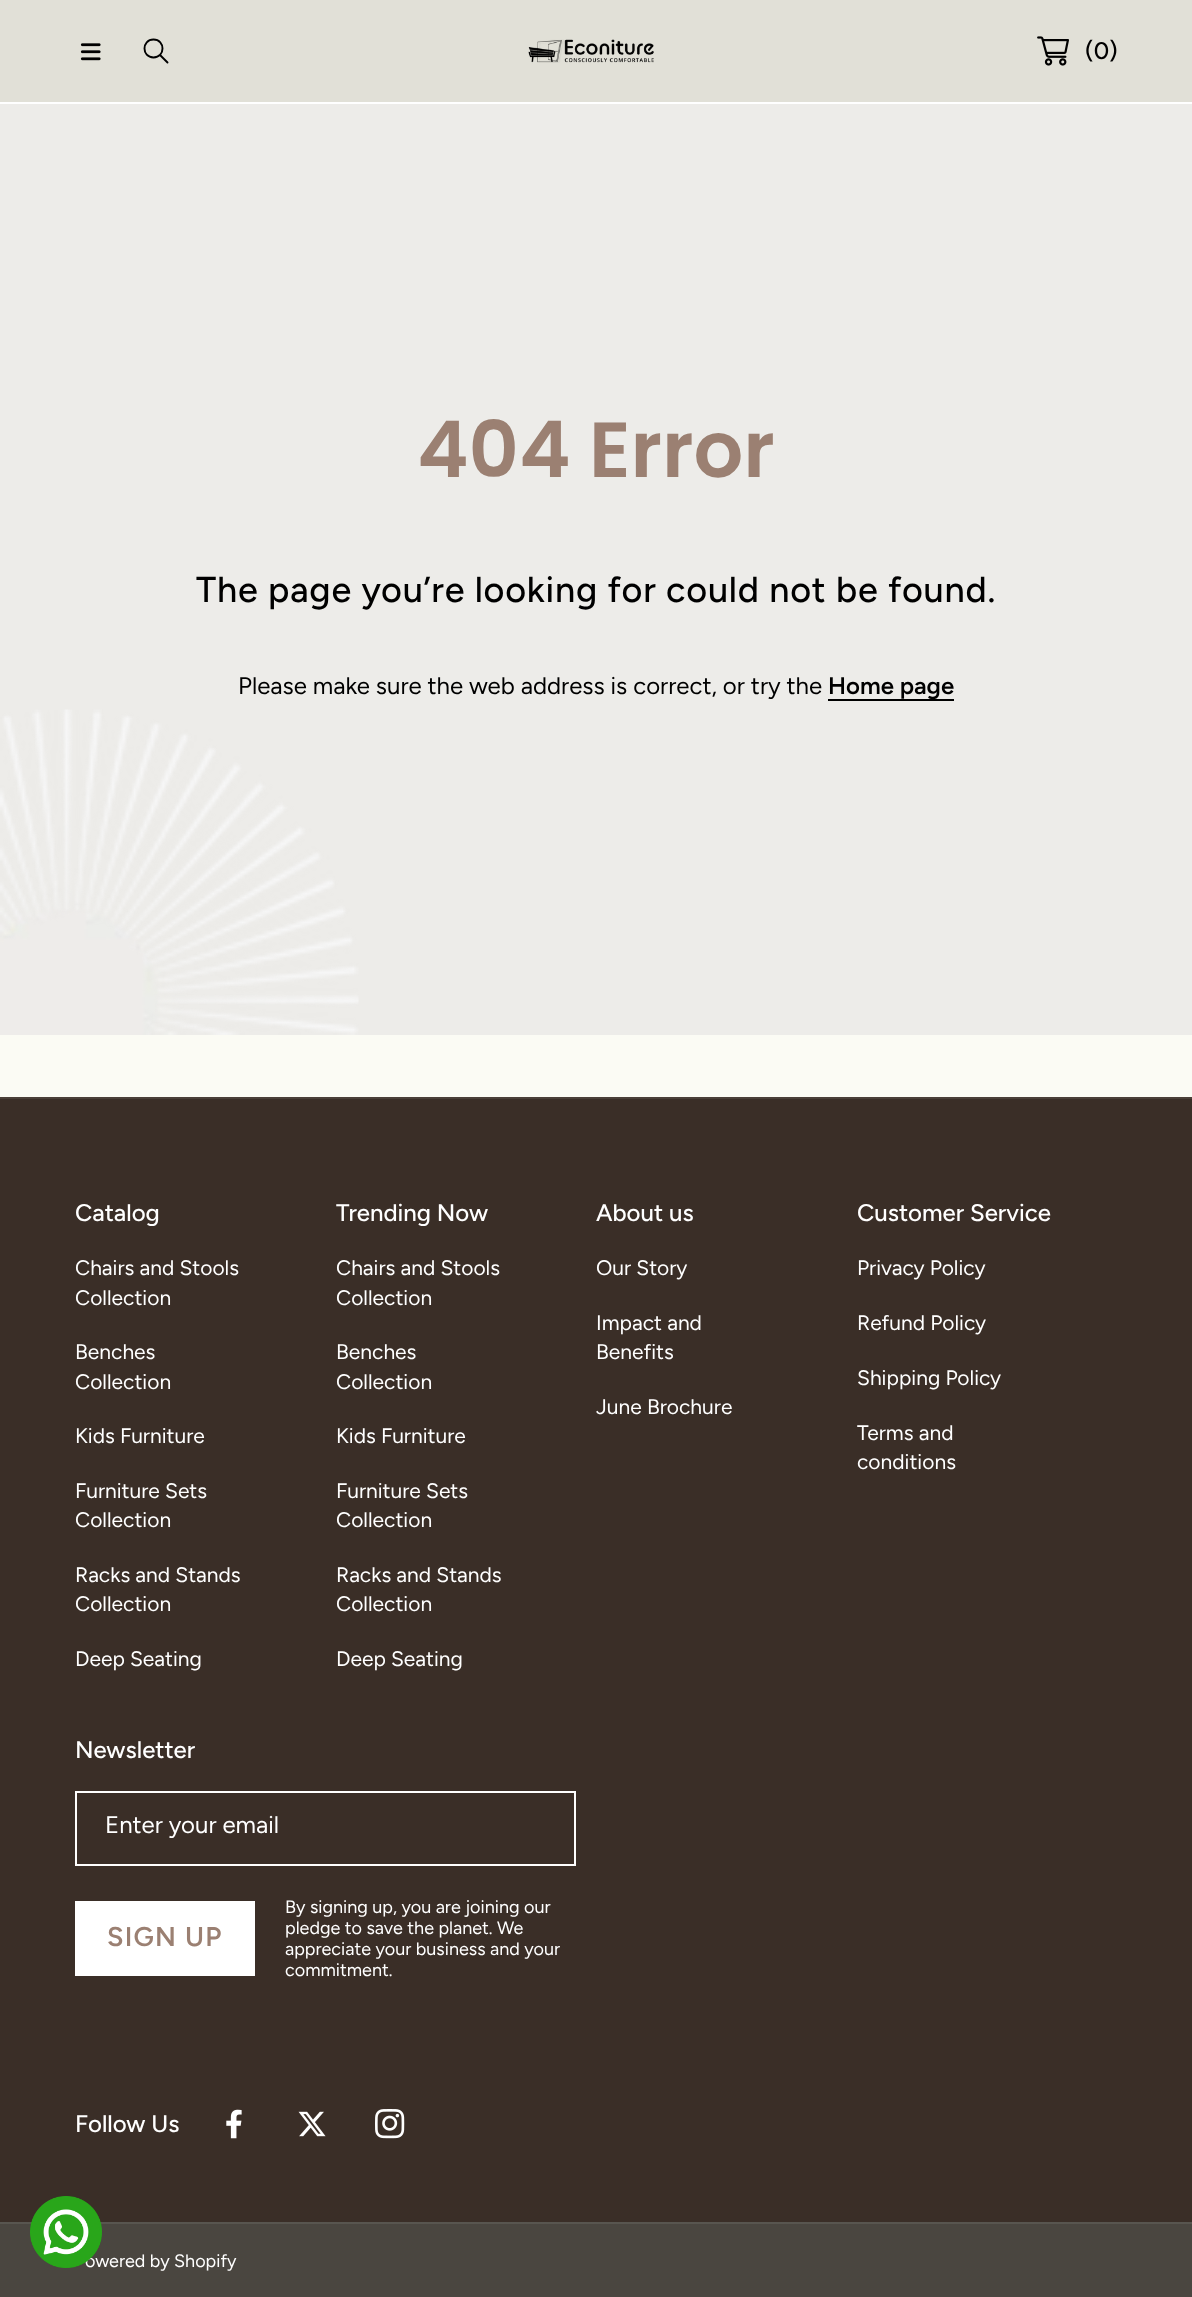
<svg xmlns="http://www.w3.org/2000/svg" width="1192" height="2297">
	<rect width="100%" height="100%" fill="#FBFBF4" />
	<rect x="0" y="0" width="1192" height="102" fill="#E1E0D7" />
	<rect x="0" y="102" width="1192" height="2" fill="#FFFFFF" />
	<image x="80" y="43" width="21" height="18" href="assets/img1.png" />
	<path d="M153.5 57.5C165.5 57.5 165.5 39.5 153.5 39.5C141.5 39.5 141.5 57.5 153.5 57.5ZM167.5 62.5L160 55" fill="none" stroke="#000000" stroke-width="1.9" stroke-linecap="round" stroke-linejoin="round" />
	<image x="528" y="39" width="126" height="24" href="assets/img2.png" />
	<image x="1037" y="36" width="32" height="30" href="assets/img3.png" />
	<text x="1085" y="59" font-family="Figtree" font-size="24" font-weight="500" fill="#000000">(0)</text>
	<rect x="0" y="104" width="1192" height="931" fill="#EDECE9" />
	<image x="0" y="709" width="359" height="326" href="assets/img4.png" />
	<text x="417" y="477" font-family="Poppins" font-size="78" font-weight="600" fill="#9B8072">404 Error</text>
	<text x="196" y="602" font-family="Figtree" font-size="36" font-weight="500" letter-spacing="0.75" fill="#000000">The page you’re looking for could not be found.</text>
	<text x="238" y="694" font-family="Figtree" font-size="24" fill="#000000">Please make sure the web address is correct, or try the</text>
	<rect x="828" y="699" width="126" height="2" fill="#000000" />
	<text x="828" y="694" font-family="Figtree" font-size="24" font-weight="600" fill="#000000">Home page</text>
	<rect x="0" y="1099" width="1192" height="1123" fill="#3A2E27" />
	<rect x="0" y="2224" width="1192" height="73" fill="#4A4640" />
	<rect x="0" y="2222" width="1192" height="2" fill="#58554F" />
	<text x="85" y="2267" font-family="Figtree" font-size="18" fill="#FFFFFF">owered by Shopify</text>
	<image x="30" y="2196" width="72" height="72" href="assets/img5.png" />
	<rect x="0" y="1097" width="1192" height="2" fill="#4A3F38" />
	<text x="75" y="1221" font-family="Figtree" font-size="24" font-weight="500" fill="#FFFFFF">Catalog</text>
	<g font-family="Figtree" font-size="21" fill="#FFFFFF">
		<text x="75" y="1275">Chairs and Stools</text>
		<text x="75" y="1305">Collection</text>
		<text x="75" y="1359">Benches</text>
		<text x="75" y="1389">Collection</text>
		<text x="75" y="1443">Kids Furniture</text>
		<text x="75" y="1498">Furniture Sets</text>
		<text x="75" y="1527">Collection</text>
		<text x="75" y="1582">Racks and Stands</text>
		<text x="75" y="1611">Collection</text>
		<text x="75" y="1666">Deep Seating</text>
	</g>
	<text x="336" y="1221" font-family="Figtree" font-size="24" font-weight="500" fill="#FFFFFF">Trending Now</text>
	<g font-family="Figtree" font-size="21" fill="#FFFFFF">
		<text x="336" y="1275">Chairs and Stools</text>
		<text x="336" y="1305">Collection</text>
		<text x="336" y="1359">Benches</text>
		<text x="336" y="1389">Collection</text>
		<text x="336" y="1443">Kids Furniture</text>
		<text x="336" y="1498">Furniture Sets</text>
		<text x="336" y="1527">Collection</text>
		<text x="336" y="1582">Racks and Stands</text>
		<text x="336" y="1611">Collection</text>
		<text x="336" y="1666">Deep Seating</text>
	</g>
	<text x="596" y="1221" font-family="Figtree" font-size="24" font-weight="500" fill="#FFFFFF">About us</text>
	<g font-family="Figtree" font-size="21" fill="#FFFFFF">
		<text x="596" y="1275">Our Story</text>
		<text x="596" y="1330">Impact and</text>
		<text x="596" y="1359">Benefits</text>
		<text x="596" y="1414">June Brochure</text>
	</g>
	<text x="857" y="1221" font-family="Figtree" font-size="24" font-weight="500" fill="#FFFFFF">Customer Service</text>
	<g font-family="Figtree" font-size="21" fill="#FFFFFF">
		<text x="857" y="1275">Privacy Policy</text>
		<text x="857" y="1330">Refund Policy</text>
		<text x="857" y="1385">Shipping Policy</text>
		<text x="857" y="1440">Terms and</text>
		<text x="857" y="1469">conditions</text>
	</g>
	<text x="75" y="1758" font-family="Figtree" font-size="24" font-weight="500" fill="#FFFFFF">Newsletter</text>
	<rect x="76" y="1792" width="499" height="73" fill="none" stroke="#FFFFFF" stroke-width="2" />
	<text x="105" y="1833" font-family="Figtree" font-size="24" fill="#FFFFFF">Enter your email</text>
	<rect x="75" y="1901" width="180" height="75" fill="#FFFFFF" />
	<text x="107" y="1946" font-family="Figtree" font-size="27" font-weight="600" letter-spacing="1.25" fill="#9B8072">SIGN UP</text>
	<g font-family="Figtree" font-size="18" fill="#FFFFFF">
		<text x="285" y="1913">By signing up, you are joining our</text>
		<text x="285" y="1934">pledge to save the planet. We</text>
		<text x="285" y="1955">appreciate your business and your</text>
		<text x="285" y="1976">commitment.</text>
	</g>
	<text x="75" y="2132" font-family="Figtree" font-size="24" font-weight="500" fill="#FFFFFF">Follow Us</text>
	<image x="226" y="2109" width="16" height="30" href="assets/img6.png" />
	<image x="298" y="2111" width="28" height="26" href="assets/img7.png" />
	<image x="375" y="2109" width="30" height="30" href="assets/img8.png" />
</svg>
